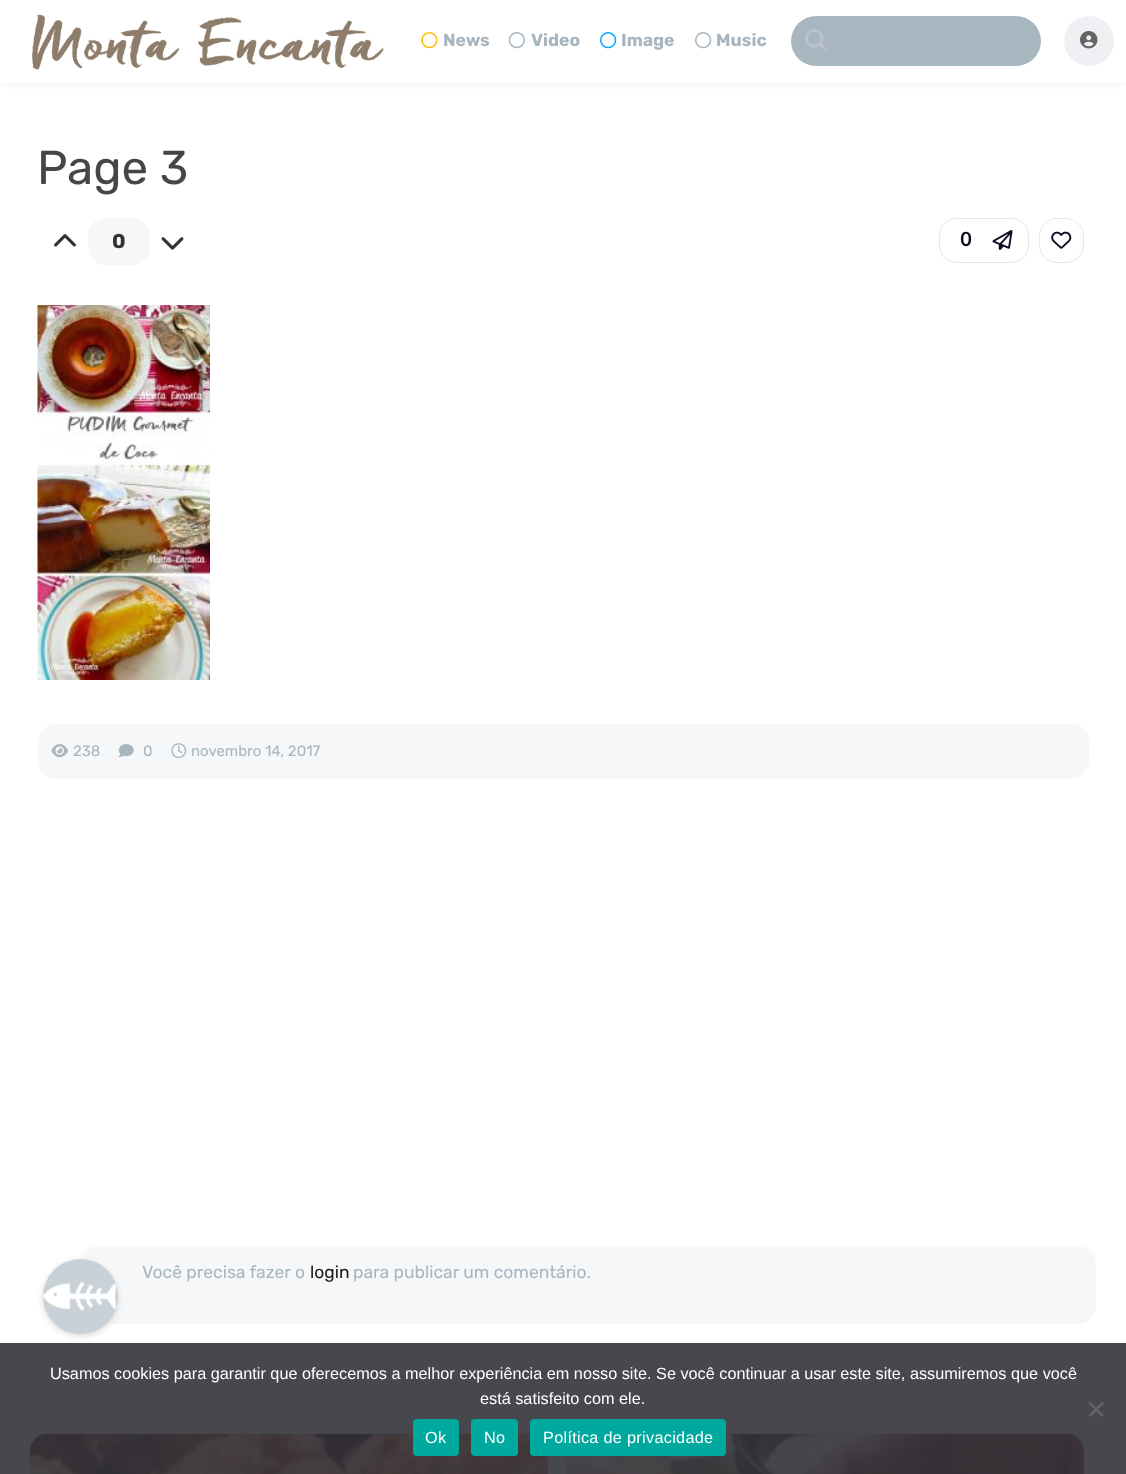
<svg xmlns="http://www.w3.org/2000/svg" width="1126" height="1474">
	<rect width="100%" height="100%" fill="#FFFFFF" />
	<rect x="0" y="1343" width="1126" height="131" fill="#47474E" />
	<rect x="0" y="1" width="1126" height="83" fill="#000000" fill-opacity="0.05" filter="blur(3px)" />
	<rect x="0" y="0" width="1126" height="83" fill="#FFFFFF" />
	<image x="31" y="14" width="353" height="56" href="assets/img1.png" />
	<image x="421" y="32" width="17" height="17" href="assets/img2.png" />
	<text x="443" y="46" font-family="Rubik" font-size="17.5" font-weight="700" fill="#A8B6C0">News</text>
	<image x="508" y="32" width="17" height="17" href="assets/img3.png" />
	<text x="531" y="46" font-family="Rubik" font-size="17.5" font-weight="700" fill="#A8B6C0">Video</text>
	<image x="600" y="32" width="17" height="17" href="assets/img4.png" />
	<text x="621" y="46" font-family="Rubik" font-size="17.5" font-weight="700" fill="#A8B6C0">Image</text>
	<image x="695" y="32" width="17" height="17" href="assets/img5.png" />
	<text x="716" y="46" font-family="Rubik" font-size="17.5" font-weight="700" fill="#A8B6C0">Music</text>
	<rect x="791" y="16" width="250" height="50" rx="25" fill="#A8B6C0" />
	<image x="805" y="29" width="23" height="23" href="assets/img6.png" />
	<circle cx="1089" cy="41" r="25" fill="#EEF0F3" />
	<image x="1080" y="30" width="18" height="19" href="assets/img7.png" />
	<text x="37" y="184" font-family="Rubik" font-size="47.5" fill="#464646">Page 3</text>
	<image x="54" y="234" width="22" height="13" href="assets/img8.png" />
	<rect x="88" y="218" width="62" height="47" rx="18" fill="#F6F7F9" />
	<text x="112" y="248" font-family="Rubik" font-size="20" font-weight="700" fill="#333333">0</text>
	<image x="161" y="237" width="23" height="13" href="assets/img9.png" />
	<rect x="939.5" y="218.5" width="89" height="44" rx="17.5" fill="none" stroke="#E7E7E9" />
	<text x="960" y="246" font-family="Nunito" font-size="20" font-weight="700" fill="#0D0C22">0</text>
	<image x="992" y="230" width="21" height="20" href="assets/img10.png" />
	<rect x="1039.5" y="218.5" width="44" height="44" rx="17.5" fill="none" stroke="#E7E7E9" />
	<image x="1051" y="231" width="21" height="18" href="assets/img11.png" />
	<image x="37" y="305" width="173" height="375" href="assets/img12.png" />
	<rect x="38" y="724" width="1051" height="55" rx="18" fill="#F6F7F9" />
	<image x="51" y="744" width="17" height="14" href="assets/img13.png" />
	<text x="73" y="756" font-family="Rubik" font-size="15" fill="#A8B6C0">238</text>
	<image x="118" y="744" width="16" height="14" href="assets/img14.png" />
	<text x="143" y="756" font-family="Rubik" font-size="15" fill="#A8B6C0">0</text>
	<image x="171" y="743" width="16" height="16" href="assets/img15.png" />
	<text x="191" y="756" font-family="Rubik" font-size="15" fill="#A8B6C0">novembro 14, 2017</text>
	<rect x="80" y="1246" width="1016" height="78" rx="18" fill="#F6F7F9" />
	<rect x="43" y="1261" width="75" height="75" rx="37.5" fill="#000000" fill-opacity="0.15" filter="blur(3px)" />
	<circle cx="80.5" cy="1296.5" r="37.5" fill="#C8D1D8" />
	<image x="43" y="1281" width="74" height="30" href="assets/img16.png" />
	<text x="142" y="1278" font-family="Rubik" font-size="17.5" fill="#A8B6C0">Você precisa fazer o</text>
	<text x="310" y="1278" font-family="Rubik" font-size="17.5" fill="#1A1919">login</text>
	<text x="353" y="1278" font-family="Rubik" font-size="17.5" fill="#A8B6C0">para publicar um comentário.</text>
	<rect x="29.5" y="1433.5" width="519" height="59" rx="17.5" fill="none" stroke="#44444C" />
	<path d="M48 1434H530C540 1434 548 1442 548 1452V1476C548 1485 541 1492 532 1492H46C37 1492 30 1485 30 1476V1452C30 1442 38 1434 48 1434Z" fill="#3E3F47" />
	<image x="30" y="1434" width="518" height="40" href="assets/img17.png" />
	<rect x="565.5" y="1433.5" width="519" height="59" rx="17.5" fill="none" stroke="#44444C" />
	<path d="M584 1434H1066C1076 1434 1084 1442 1084 1452V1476C1084 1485 1077 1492 1068 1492H582C573 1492 566 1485 566 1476V1452C566 1442 574 1434 584 1434Z" fill="#3E3F47" />
	<image x="566" y="1434" width="518" height="40" href="assets/img18.png" />
	<g font-family="Liberation Sans" font-size="16.25" fill="#FFFFFF">
		<text x="50" y="1379">Usamos cookies para garantir que oferecemos a melhor experiência em nosso site. Se você continuar a usar este site, assumiremos que você</text>
		<text x="480" y="1404">está satisfeito com ele.</text>
	</g>
	<path d="M1102 1402L1104 1403.5L1090.5 1417L1088.5 1415Z" fill="#636367" />
	<path d="M1088.5 1403.5L1090.5 1402L1104 1415L1102 1417Z" fill="#636367" />
	<rect x="413" y="1419" width="46" height="37" rx="4" fill="#00A99D" />
	<text x="425" y="1443" font-family="Liberation Sans" font-size="16.25" letter-spacing="0.3" fill="#FFFFFF">Ok</text>
	<rect x="471" y="1419" width="47" height="37" rx="4" fill="#00A99D" />
	<text x="484" y="1443" font-family="Liberation Sans" font-size="16.25" letter-spacing="0.3" fill="#FFFFFF">No</text>
	<rect x="530" y="1419" width="196" height="37" rx="4" fill="#00A99D" />
	<text x="543" y="1443" font-family="Liberation Sans" font-size="16.25" letter-spacing="0.3" fill="#FFFFFF">Política de privacidade</text>
</svg>
